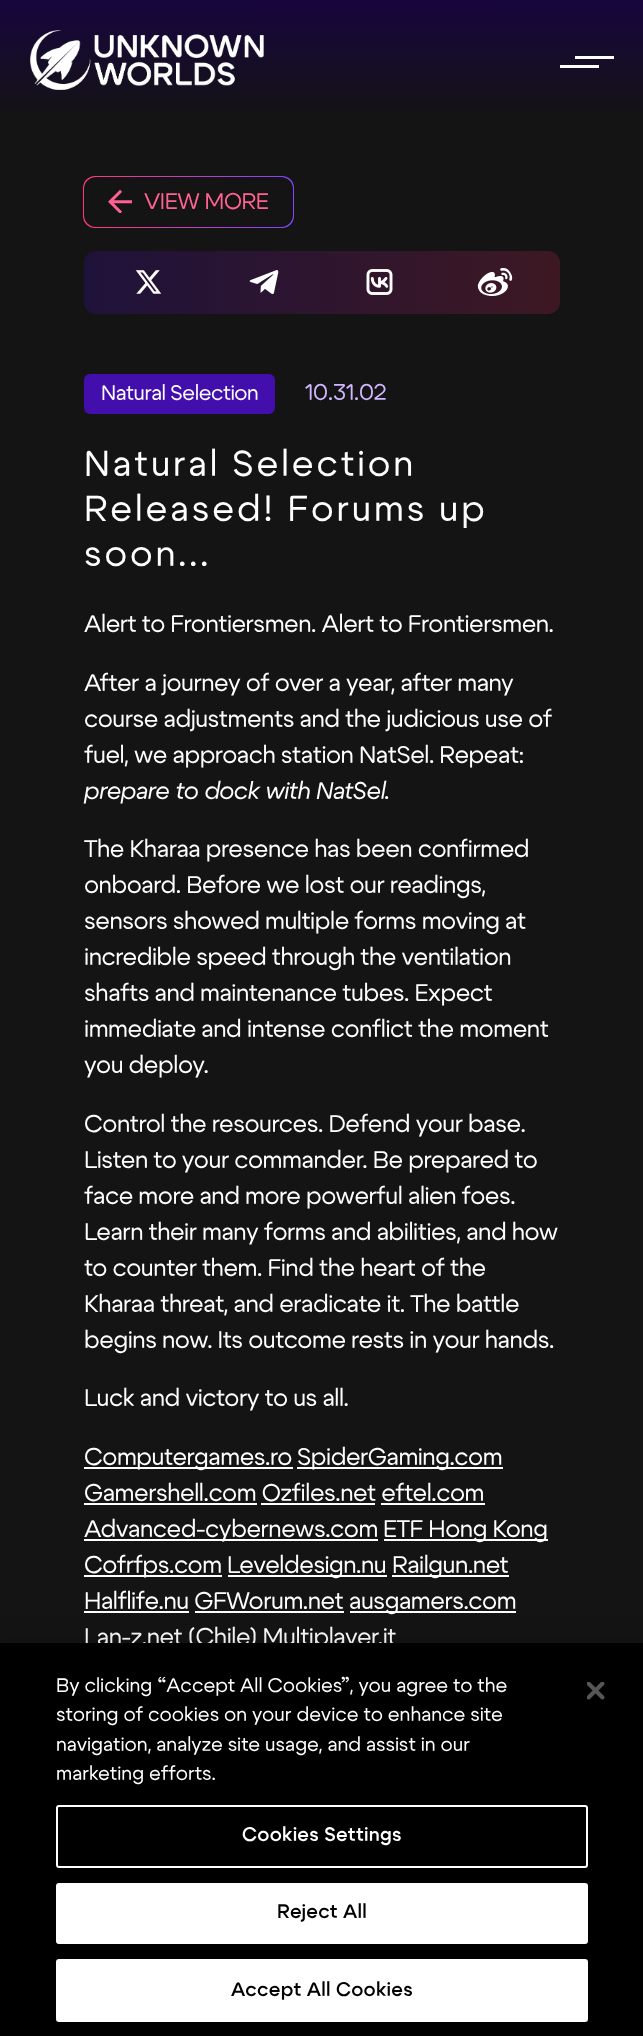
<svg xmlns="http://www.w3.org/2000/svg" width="643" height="2036">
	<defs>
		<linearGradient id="g1" gradientUnits="userSpaceOnUse" x1="322" y1="0" x2="322" y2="120"><stop offset="0" stop-color="#17053D" /><stop offset="1" stop-color="#141414" /></linearGradient>
		<linearGradient id="g2" gradientUnits="userSpaceOnUse" x1="81" y1="210" x2="295" y2="194"><stop offset="0.02" stop-color="#FF3975" /><stop offset="0.95" stop-color="#8346FE" /></linearGradient>
		<linearGradient id="g3" gradientUnits="userSpaceOnUse" x1="84" y1="282" x2="560" y2="282"><stop offset="0" stop-color="#1F123A" /><stop offset="1" stop-color="#3D1823" /></linearGradient>
	</defs>
	<rect width="100%" height="100%" fill="#141414" />
	<rect x="0" y="0" width="643" height="113" fill="url(#g1)" />
	<image x="30" y="30" width="234" height="60" href="assets/img1.png" />
	<rect x="575" y="56" width="39" height="3" fill="#FFFFFF" />
	<rect x="560" y="65" width="39" height="3" fill="#FFFFFF" />
	<rect x="83" y="176" width="211" height="52" rx="12" fill="url(#g2)" />
	<rect x="84" y="177" width="209" height="50" rx="12" fill="#141414" />
	<image x="108" y="189" width="24" height="24" href="assets/img2.png" />
	<text x="144" y="209" font-family="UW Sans" font-size="22.5" letter-spacing="-0.45" fill="#FF6191">VIEW MORE</text>
	<rect x="84" y="251" width="476" height="63" rx="12" fill="url(#g3)" />
	<image x="135" y="270" width="27" height="24" href="assets/img3.png" />
	<image x="249" y="270" width="30" height="25" href="assets/img4.png" />
	<image x="366" y="269" width="27" height="26" href="assets/img5.png" />
	<image x="477" y="268" width="36" height="28" href="assets/img6.png" />
	<rect x="85" y="375" width="189" height="38" rx="5" fill="#420EAC" stroke="#420EAC" stroke-width="2" />
	<text x="101" y="400" font-family="UW Sans" font-size="21" letter-spacing="-0.45" fill="#FFFFFF">Natural Selection</text>
	<text x="304" y="400" font-family="UW Sans" font-size="22.5" letter-spacing="-0.45" fill="#CFB8FF">10.31.02</text>
	<g font-family="UW Sans" font-size="36" letter-spacing="2.9" fill="#FFFFFF">
		<text x="84" y="476">Natural Selection</text>
		<text x="84" y="521">Released! Forums up</text>
		<text x="84" y="566">soon...</text>
	</g>
	<g font-family="UW Sans" font-size="24" letter-spacing="-0.45" fill="#FFFFFF">
		<text x="84" y="632">Alert to Frontiersmen. Alert to Frontiersmen.</text>
		<text x="84" y="691">After a journey of over a year, after many</text>
		<text x="84" y="727">course adjustments and the judicious use of</text>
		<text x="84" y="763">fuel, we approach station NatSel. Repeat:</text>
	</g>
	<text x="84" y="799" font-family="UW Sans" font-size="24" font-style="italic" letter-spacing="-0.45" fill="#FFFFFF">prepare to dock with NatSel.</text>
	<g font-family="UW Sans" font-size="24" letter-spacing="-0.45" fill="#FFFFFF">
		<text x="84" y="857">The Kharaa presence has been confirmed</text>
		<text x="84" y="893">onboard. Before we lost our readings,</text>
		<text x="84" y="929">sensors showed multiple forms moving at</text>
		<text x="84" y="965">incredible speed through the ventilation</text>
		<text x="84" y="1001">shafts and maintenance tubes. Expect</text>
		<text x="84" y="1037">immediate and intense conflict the moment</text>
		<text x="84" y="1073">you deploy.</text>
		<text x="84" y="1132">Control the resources. Defend your base.</text>
		<text x="84" y="1168">Listen to your commander. Be prepared to</text>
		<text x="84" y="1204">face more and more powerful alien foes.</text>
		<text x="84" y="1240">Learn their many forms and abilities, and how</text>
		<text x="84" y="1276">to counter them. Find the heart of the</text>
		<text x="84" y="1312">Kharaa threat, and eradicate it. The battle</text>
		<text x="84" y="1348">begins now. Its outcome rests in your hands.</text>
		<text x="84" y="1406">Luck and victory to us all.</text>
	</g>
	<rect x="84" y="1467" width="209" height="2" fill="#FFFFFF" />
	<text x="84" y="1465" font-family="UW Sans" font-size="24" letter-spacing="-0.45" fill="#FFFFFF">Computergames.ro</text>
	<rect x="297" y="1467" width="206" height="2" fill="#FFFFFF" />
	<g font-family="UW Sans" font-size="24" letter-spacing="-0.45" fill="#FFFFFF">
		<text x="297" y="1465">SpiderGaming.com</text>
		<text x="84" y="1501">Gamershell.com Ozfiles.net eftel.com</text>
	</g>
	<rect x="84" y="1503" width="173" height="2" fill="#FFFFFF" />
	<rect x="261" y="1503" width="114" height="2" fill="#FFFFFF" />
	<rect x="381" y="1503" width="104" height="2" fill="#FFFFFF" />
	<rect x="84" y="1539" width="294" height="2" fill="#FFFFFF" />
	<text x="84" y="1537" font-family="UW Sans" font-size="24" letter-spacing="-0.45" fill="#FFFFFF">Advanced-cybernews.com</text>
	<rect x="384" y="1539" width="164" height="2" fill="#FFFFFF" />
	<text x="383" y="1537" font-family="UW Sans" font-size="24" letter-spacing="-0.45" fill="#FFFFFF">ETF Hong Kong</text>
	<rect x="84" y="1575" width="138" height="2" fill="#FFFFFF" />
	<text x="84" y="1573" font-family="UW Sans" font-size="24" letter-spacing="-0.45" fill="#FFFFFF">Cofrfps.com</text>
	<rect x="228" y="1575" width="159" height="2" fill="#FFFFFF" />
	<text x="227" y="1573" font-family="UW Sans" font-size="24" letter-spacing="-0.45" fill="#FFFFFF">Leveldesign.nu</text>
	<rect x="392" y="1575" width="117" height="2" fill="#FFFFFF" />
	<g font-family="UW Sans" font-size="24" letter-spacing="-0.45" fill="#FFFFFF">
		<text x="392" y="1573">Railgun.net</text>
		<text x="84" y="1609">Halflife.nu GFWorum.net</text>
	</g>
	<rect x="84" y="1611" width="105" height="2" fill="#FFFFFF" />
	<rect x="350" y="1611" width="166" height="2" fill="#FFFFFF" />
	<text x="349" y="1609" font-family="UW Sans" font-size="24" letter-spacing="-0.45" fill="#FFFFFF">ausgamers.com</text>
	<rect x="195" y="1611" width="149" height="2" fill="#FFFFFF" />
	<text x="84" y="1645" font-family="UW Sans" font-size="24" letter-spacing="-0.45" fill="#FFFFFF">Lan-z.net (Chile) Multiplayer.it</text>
	<rect x="0" y="1643" width="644" height="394" fill="#000000" fill-opacity="0.2" filter="blur(13.5px)" />
	<rect x="0" y="1643" width="643" height="393" fill="#000000" />
	<g font-family="UW Sans" font-size="19.5" fill="#FFFFFF">
		<text x="56" y="1692">By clicking “Accept All Cookies”, you agree to the</text>
		<text x="56" y="1721">storing of cookies on your device to enhance site</text>
		<text x="56" y="1751">navigation, analyze site usage, and assist in our</text>
		<text x="56" y="1780">marketing efforts.</text>
	</g>
	<rect x="57" y="1806" width="530" height="61" rx="2" fill="none" stroke="#FFFFFF" stroke-width="2" />
	<text x="242" y="1841" font-family="UW Sans" font-size="19.5" font-weight="600" letter-spacing="0.25" fill="#FFFFFF">Cookies Settings</text>
	<rect x="57" y="1884" width="530" height="59" rx="2" fill="#FFFFFF" stroke="#FFFFFF" stroke-width="2" />
	<text x="277" y="1918" font-family="UW Sans" font-size="19.5" font-weight="600" letter-spacing="0.25" fill="#000000">Reject All</text>
	<rect x="57" y="1960" width="530" height="61" rx="2" fill="#FFFFFF" stroke="#FFFFFF" stroke-width="2" />
	<text x="231" y="1996" font-family="UW Sans" font-size="19.5" font-weight="600" letter-spacing="0.25" fill="#000000">Accept All Cookies</text>
	<image x="587" y="1682" width="18" height="18" href="assets/img7.png" />
</svg>
